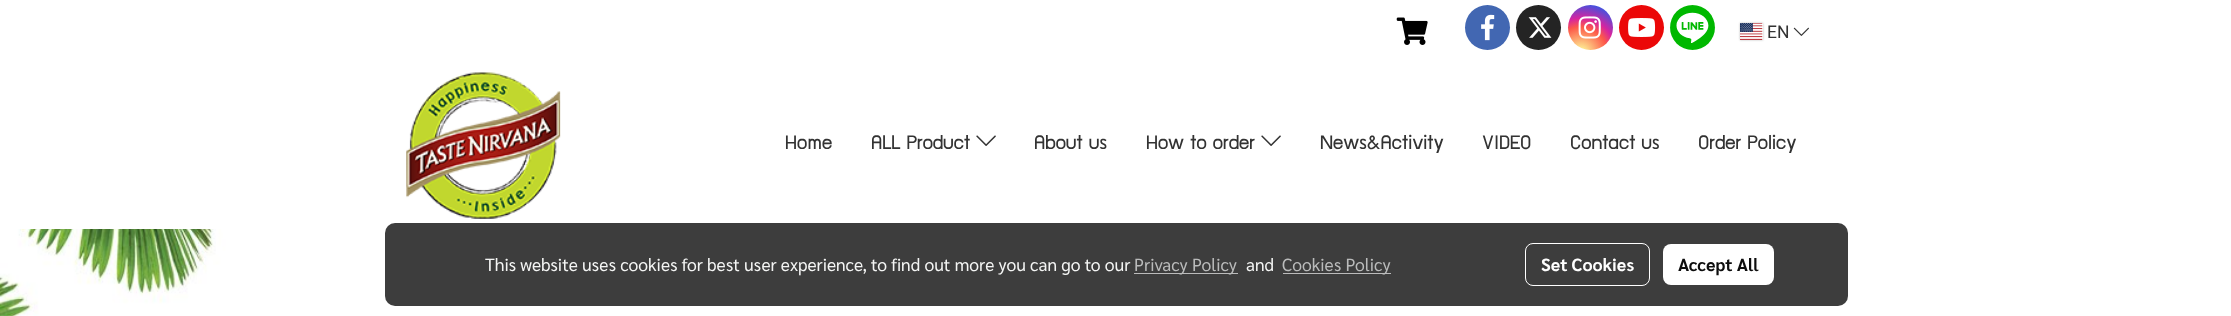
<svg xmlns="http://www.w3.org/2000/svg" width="2231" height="316">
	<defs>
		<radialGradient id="g1" gradientUnits="userSpaceOnUse" cx="1581" cy="53" r="58"><stop offset="0" stop-color="#FDF497" /><stop offset="0.05" stop-color="#FDF497" /><stop offset="0.45" stop-color="#FD5949" /><stop offset="0.6" stop-color="#D6249F" /><stop offset="0.9" stop-color="#285AEB" /></radialGradient>
		<clipPath id="clip1"><path d="M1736 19H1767V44H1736ZM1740 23H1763V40H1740Z" clip-rule="evenodd" /></clipPath>
	</defs>
	<rect width="100%" height="100%" fill="#FFFFFF" />
	<image x="0" y="229" width="2231" height="87" href="assets/img1.png" />
	<image x="1396" y="17" width="32" height="28" href="assets/img2.png" />
	<circle cx="1487.5" cy="27.5" r="22.5" fill="#4267B2" />
	<image x="1481" y="14" width="14" height="27" href="assets/img3.png" />
	<circle cx="1538.5" cy="27.5" r="22.5" fill="#242424" />
	<image x="1528" y="17" width="24" height="21" href="assets/img4.png" />
	<circle cx="1590.5" cy="27.5" r="22.5" fill="url(#g1)" />
	<image x="1578" y="16" width="23" height="23" href="assets/img5.png" />
	<circle cx="1641.5" cy="27.5" r="22.5" fill="#EB0808" />
	<image x="1628" y="18" width="28" height="19" href="assets/img6.png" />
	<circle cx="1692.5" cy="27.5" r="22.5" fill="#00B800" />
	<image x="1670" y="5" width="45" height="45" href="assets/img7.png" />
	<g clip-path="url(#clip1)">
		<rect x="1740" y="23" width="23" height="17" fill="#000000" fill-opacity="0.25" filter="blur(1px)" />
	</g>
	<image x="1740" y="23" width="23" height="17" href="assets/img8.png" />
	<text x="1767" y="38" font-family="Roboto" font-size="17.5" fill="#333333">EN</text>
	<image x="1793" y="27" width="16" height="9" href="assets/img9.png" />
	<image x="406" y="72" width="155" height="147" href="assets/img10.png" />
	<g font-family="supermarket" font-size="22.5" fill="#333333">
		<text x="785" y="149">Home</text>
		<text x="871" y="149">ALL Product</text>
	</g>
	<image x="976" y="135" width="20" height="11" href="assets/img11.png" />
	<g font-family="supermarket" font-size="22.5" fill="#333333">
		<text x="1034" y="149">About us</text>
		<text x="1146" y="149">How to order</text>
	</g>
	<image x="1261" y="135" width="20" height="11" href="assets/img11.png" />
	<g font-family="supermarket" font-size="22.5" fill="#333333">
		<text x="1320" y="149">News&amp;Activity</text>
		<text x="1482" y="149">VIDEO</text>
		<text x="1570" y="149">Contact us</text>
		<text x="1698" y="149">Order Policy</text>
	</g>
	<rect x="385" y="223" width="1463" height="83" rx="10" fill="#000000" fill-opacity="0.76" />
	<text x="485" y="271" font-family="Sarabun" font-size="17.5" fill="#F4F5F4">This website uses cookies for best user experience, to find out more you can go to our</text>
	<rect x="1134" y="273" width="104" height="1" fill="#C2C2C2" fill-opacity="0.95" />
	<text x="1134" y="271" font-family="Sarabun" font-size="17.5" fill="#BABBBB">Privacy Policy</text>
	<text x="1246" y="271" font-family="Sarabun" font-size="17.5" fill="#F4F5F4">and</text>
	<rect x="1283" y="273" width="108" height="1" fill="#C2C2C2" fill-opacity="0.95" />
	<text x="1282" y="271" font-family="Sarabun" font-size="17.5" fill="#BABBBB">Cookies Policy</text>
	<rect x="1525.5" y="243.5" width="124" height="42" rx="7.5" fill="none" stroke="#FFFFFF" />
	<text x="1541" y="271" font-family="Sarabun" font-size="17.5" font-weight="700" fill="#FFFFFF">Set Cookies</text>
	<rect x="1663" y="244" width="111" height="41" rx="8" fill="#FFFFFF" />
	<text x="1678" y="271" font-family="Sarabun" font-size="17.5" font-weight="700" fill="#0D0D0D">Accept All</text>
</svg>
